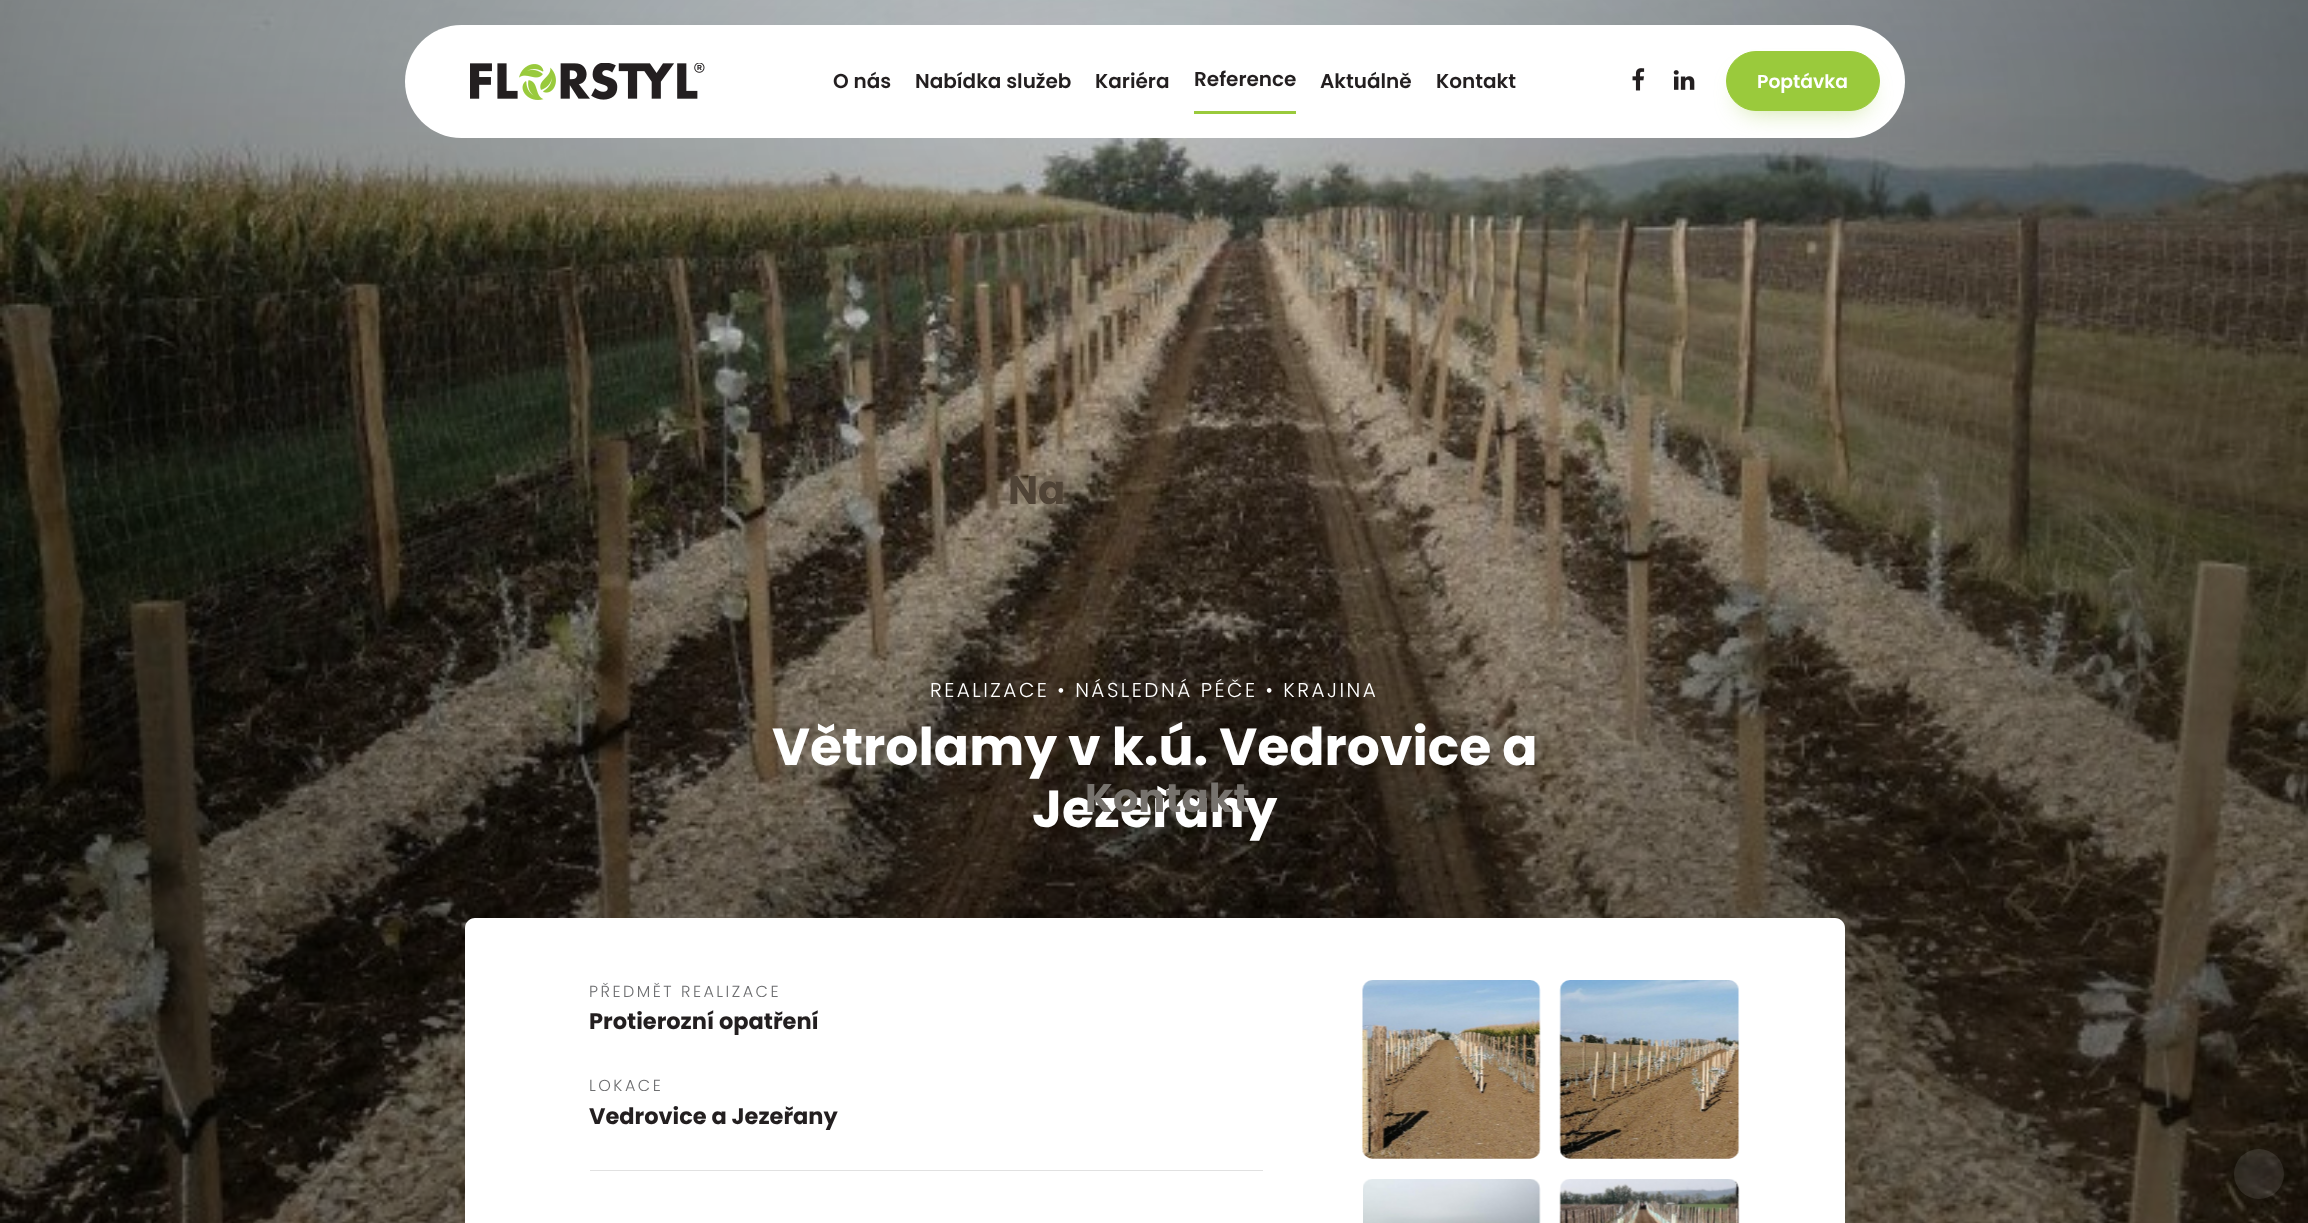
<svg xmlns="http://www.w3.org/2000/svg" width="2308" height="1223">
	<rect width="100%" height="100%" fill="#FFFFFF" />
	<image x="0" y="0" width="2308" height="1223" href="assets/img4.png" />
	<rect x="405" y="25" width="1500" height="113" rx="56.5" fill="#FFFFFF" />
	<image x="470" y="63" width="235" height="37" href="assets/img1.png" />
	<g font-family="Poppins" font-size="20" font-weight="600" fill="#231F20">
		<text x="833" y="88">O nás</text>
		<text x="915" y="88">Nabídka služeb</text>
		<text x="1095" y="88">Kariéra</text>
	</g>
	<rect x="1194" y="111" width="102" height="3" fill="#9ACA3C" />
	<g font-family="Poppins" font-size="20" font-weight="600" fill="#231F20">
		<text x="1194" y="86">Reference</text>
		<text x="1320" y="88">Aktuálně</text>
		<text x="1436" y="88">Kontakt</text>
	</g>
	<image x="1632" y="68" width="13" height="23" href="assets/img2.png" />
	<image x="1673" y="70" width="22" height="20" href="assets/img3.png" />
	<rect x="1739" y="76" width="129" height="35" rx="17.5" fill="#9ACA3C" fill-opacity="0.5" filter="blur(12.5px)" />
	<rect x="1726.5" y="51.5" width="153" height="59" rx="29.5" fill="#9ACA3C" stroke="#9ACA3C" />
	<text x="1757" y="88" font-family="Poppins" font-size="18.75" font-weight="600" fill="#FFFFFF">Poptávka</text>
	<text x="1008" y="504" font-family="Poppins" font-size="40" font-weight="700" fill="#4F4336">Na</text>
	<text x="1032" y="827" font-family="Poppins" font-size="52" font-weight="700" fill="#FFFFFF">Jezeřany</text>
	<text x="1085" y="812" font-family="Poppins" font-size="40" font-weight="700" fill="#76726D">Kontakt</text>
	<text x="930" y="697" font-family="Poppins" font-size="20" font-weight="300" letter-spacing="2.5" fill="#FFFFFF">REALIZACE • NÁSLEDNÁ PÉČE • KRAJINA</text>
	<text x="772" y="765" font-family="Poppins" font-size="52" font-weight="700" fill="#FFFFFF">Větrolamy v k.ú. Vedrovice a</text>
	<path d="M475 918H1835C1840.5 918 1845 922.5 1845 928V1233H465V928C465 922.5 469.5 918 475 918Z" fill="#FFFFFF" />
	<rect x="590" y="1170" width="673" height="1" fill="#E1E1E1" />
	<text x="589" y="997" font-family="Poppins" font-size="16" font-weight="300" letter-spacing="2.5" fill="#6D6E70">PŘEDMĚT REALIZACE</text>
	<text x="589" y="1029" font-family="Poppins" font-size="22.5" font-weight="700" fill="#231F20">Protierozní opatření</text>
	<text x="589" y="1091" font-family="Poppins" font-size="16" font-weight="300" letter-spacing="2.5" fill="#6D6E70">LOKACE</text>
	<text x="589" y="1124" font-family="Poppins" font-size="22.5" font-weight="700" fill="#231F20">Vedrovice a Jezeřany</text>
	<image x="1362" y="980" width="179" height="179" href="assets/img5.png" />
	<image x="1559" y="980" width="181" height="179" href="assets/img6.png" />
	<image x="1363" y="1179" width="178" height="44" href="assets/img7.png" />
	<image x="1559" y="1179" width="181" height="44" href="assets/img8.png" />
	<circle cx="2259" cy="1174" r="25" fill="#FFFFFF" fill-opacity="0.1" />
</svg>
